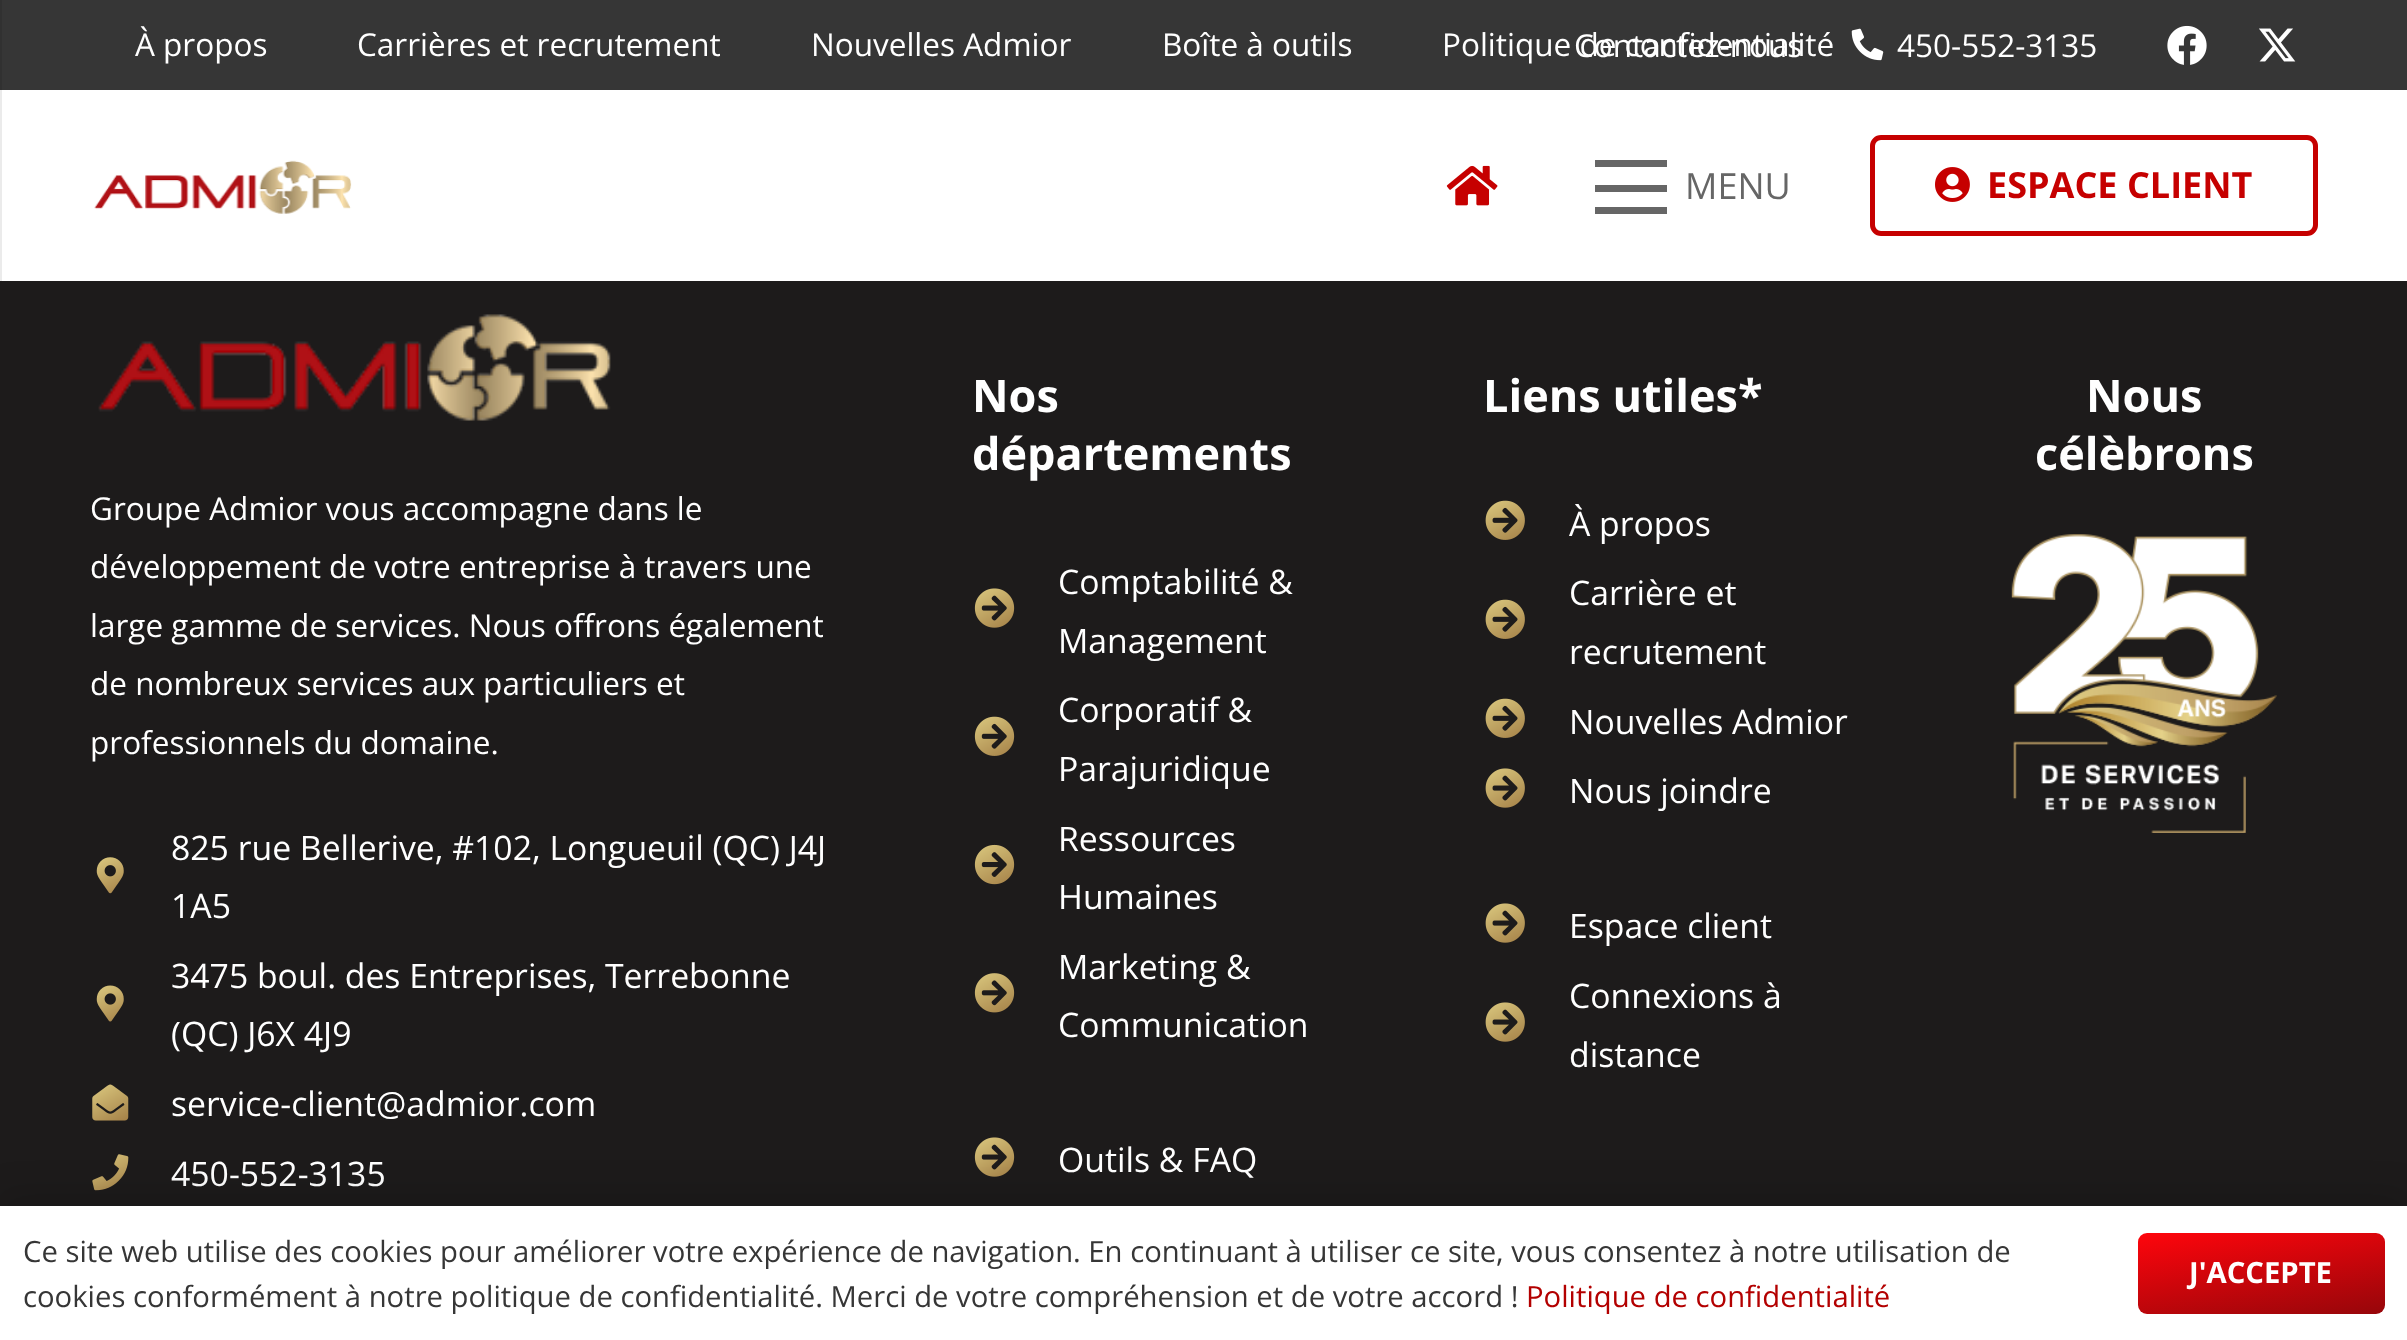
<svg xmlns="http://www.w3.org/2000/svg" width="2407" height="1340">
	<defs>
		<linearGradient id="g1" gradientUnits="userSpaceOnUse" x1="2251" y1="1213" x2="2272" y2="1334"><stop offset="0" stop-color="#FF050C" /><stop offset="1" stop-color="#96060A" /></linearGradient>
	</defs>
	<rect width="100%" height="100%" fill="#1D1B1B" />
	<rect x="0" y="0" width="2407" height="90" fill="#363636" />
	<g font-family="Open Sans" font-size="31.5" fill="#FFFFFF">
		<text x="135" y="56">À propos</text>
		<text x="357" y="56">Carrières et recrutement</text>
		<text x="811" y="56">Nouvelles Admior</text>
		<text x="1162" y="56">Boîte à outils</text>
		<text x="1574" y="57">Contactez-nous</text>
		<text x="1442" y="56">Politique de confidentialité</text>
	</g>
	<image x="1851" y="28" width="33" height="33" href="assets/img1.png" />
	<text x="1897" y="57" font-family="Open Sans" font-size="31.5" fill="#FFFFFF">450-552-3135</text>
	<image x="2167" y="25" width="40" height="40" href="assets/img2.png" />
	<image x="2259" y="28" width="37" height="34" href="assets/img3.png" />
	<rect x="0" y="90" width="2407" height="191" fill="#FFFFFF" />
	<image x="94" y="160" width="258" height="54" href="assets/img4.png" />
	<image x="1446" y="165" width="52" height="41" href="assets/img5.png" />
	<rect x="0" y="0" width="2" height="281" fill="#000000" fill-opacity="0.08" />
	<rect x="1595" y="185" width="72" height="7" fill="#666666" />
	<rect x="1595" y="160" width="72" height="7" fill="#666666" />
	<rect x="1595" y="207" width="72" height="7" fill="#666666" />
	<text x="1685" y="199" font-family="Open Sans" font-size="36" fill="#666666">MENU</text>
	<image x="1935" y="167" width="35" height="35" href="assets/img6.png" />
	<rect x="1872.5" y="137.5" width="443" height="96" rx="8.5" fill="none" stroke="#C60000" stroke-width="5" />
	<text x="1987" y="198" font-family="Open Sans" font-size="36" font-weight="700" fill="#C60000">ESPACE CLIENT</text>
	<g font-family="Open Sans" font-size="45" font-weight="700" fill="#FFFFFF">
		<text x="972" y="412">Nos</text>
		<text x="972" y="470">départements</text>
	</g>
	<image x="974" y="588" width="41" height="40" href="assets/img7.png" />
	<g font-family="Open Sans" font-size="33.75" fill="#FFFFFF">
		<text x="1058" y="594">Comptabilité &amp;</text>
		<text x="1058" y="653">Management</text>
	</g>
	<image x="974" y="716" width="41" height="40" href="assets/img8.png" />
	<g font-family="Open Sans" font-size="33.75" fill="#FFFFFF">
		<text x="1058" y="722">Corporatif &amp;</text>
		<text x="1058" y="781">Parajuridique</text>
	</g>
	<image x="974" y="844" width="41" height="41" href="assets/img9.png" />
	<g font-family="Open Sans" font-size="33.75" fill="#FFFFFF">
		<text x="1058" y="851">Ressources</text>
		<text x="1058" y="909">Humaines</text>
	</g>
	<image x="974" y="973" width="41" height="40" href="assets/img10.png" />
	<g font-family="Open Sans" font-size="33.75" fill="#FFFFFF">
		<text x="1058" y="979">Marketing &amp;</text>
		<text x="1058" y="1037">Communication</text>
	</g>
	<image x="974" y="1137" width="41" height="40" href="assets/img7.png" />
	<text x="1058" y="1172" font-family="Open Sans" font-size="33.75" fill="#FFFFFF">Outils &amp; FAQ</text>
	<text x="1483" y="412" font-family="Open Sans" font-size="45" font-weight="700" fill="#FFFFFF">Liens utiles*</text>
	<image x="1485" y="500" width="40" height="40" href="assets/img11.png" />
	<text x="1569" y="536" font-family="Open Sans" font-size="33.75" fill="#FFFFFF">À propos</text>
	<image x="1485" y="599" width="40" height="40" href="assets/img12.png" />
	<g font-family="Open Sans" font-size="33.75" fill="#FFFFFF">
		<text x="1569" y="605">Carrière et</text>
		<text x="1569" y="664">recrutement</text>
	</g>
	<image x="1485" y="698" width="40" height="40" href="assets/img11.png" />
	<text x="1569" y="734" font-family="Open Sans" font-size="33.75" fill="#FFFFFF">Nouvelles Admior</text>
	<image x="1485" y="768" width="40" height="40" href="assets/img13.png" />
	<text x="1569" y="803" font-family="Open Sans" font-size="33.75" fill="#FFFFFF">Nous joindre</text>
	<image x="1485" y="903" width="40" height="40" href="assets/img13.png" />
	<text x="1569" y="938" font-family="Open Sans" font-size="33.75" fill="#FFFFFF">Espace client</text>
	<image x="1485" y="1002" width="40" height="40" href="assets/img13.png" />
	<g font-family="Open Sans" font-size="33.75" fill="#FFFFFF">
		<text x="1569" y="1008">Connexions à</text>
		<text x="1569" y="1067">distance</text>
	</g>
	<g font-family="Open Sans" font-size="45" font-weight="700" fill="#FFFFFF">
		<text x="2086" y="412">Nous</text>
		<text x="2035" y="470">célèbrons</text>
	</g>
	<image x="2011" y="534" width="266" height="299" href="assets/img14.png" />
	<image x="98" y="314" width="513" height="107" href="assets/img15.png" />
	<g font-family="Open Sans" font-size="31.5" fill="#FFFFFF">
		<text x="90" y="520">Groupe Admior vous accompagne dans le</text>
		<text x="90" y="578">développement de votre entreprise à travers une</text>
		<text x="90" y="637">large gamme de services. Nous offrons également</text>
		<text x="90" y="695">de nombreux services aux particuliers et</text>
		<text x="90" y="754">professionnels du domaine.</text>
	</g>
	<image x="96" y="857" width="28" height="37" href="assets/img16.png" />
	<g font-family="Open Sans" font-size="33.75" fill="#FFFFFF">
		<text x="171" y="860">825 rue Bellerive, #102, Longueuil (QC) J4J</text>
		<text x="171" y="918">1A5</text>
	</g>
	<image x="96" y="985" width="28" height="37" href="assets/img17.png" />
	<g font-family="Open Sans" font-size="33.75" fill="#FFFFFF">
		<text x="171" y="988">3475 boul. des Entreprises, Terrebonne</text>
		<text x="171" y="1046">(QC) J6X 4J9</text>
	</g>
	<image x="92" y="1084" width="37" height="37" href="assets/img18.png" />
	<text x="171" y="1116" font-family="Open Sans" font-size="33.75" fill="#FFFFFF">service-client@admior.com</text>
	<image x="92" y="1154" width="37" height="37" href="assets/img19.png" />
	<text x="171" y="1186" font-family="Open Sans" font-size="33.75" fill="#FFFFFF">450-552-3135</text>
	<rect x="0" y="1195" width="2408" height="135" fill="#000000" fill-opacity="0.15" filter="blur(17px)" />
	<rect x="0" y="1206" width="2407" height="134" fill="#FFFFFF" />
	<g font-family="Open Sans" font-size="29.25" fill="#363636">
		<text x="23" y="1262">Ce site web utilise des cookies pour améliorer votre expérience de navigation. En continuant à utiliser ce site, vous consentez à notre utilisation de</text>
		<text x="23" y="1307">cookies conformément à notre politique de confidentialité. Merci de votre compréhension et de votre accord !</text>
	</g>
	<text x="1526" y="1307" font-family="Open Sans" font-size="29.25" fill="#B30000">Politique de confidentialité</text>
	<rect x="2138" y="1233" width="247" height="81" rx="9" fill="url(#g1)" />
	<text x="2189" y="1283" font-family="Open Sans" font-size="29.25" font-weight="700" fill="#FFFFFF">J'ACCEPTE</text>
</svg>
